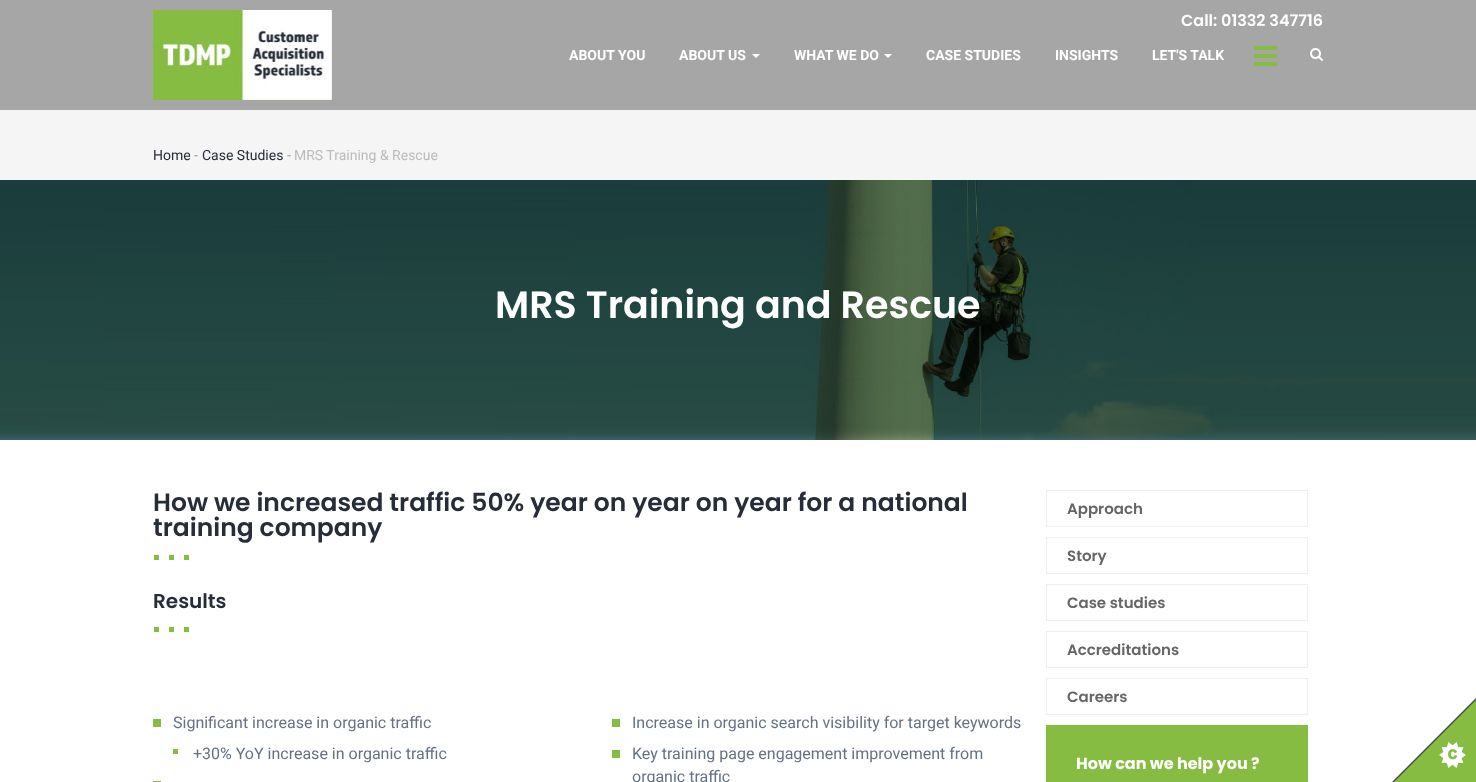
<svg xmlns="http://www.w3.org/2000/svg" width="1476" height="782">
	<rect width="100%" height="100%" fill="#FFFFFF" />
	<rect x="0" y="0" width="1476" height="110" fill="#A6A6A6" />
	<image x="153" y="10" width="179" height="90" href="assets/img1.png" />
	<text x="1181" y="26" font-family="Poppins" font-size="16" font-weight="600" fill="#FFFFFF">Call: 01332 347716</text>
	<g font-family="Roboto" font-size="14" font-weight="700" fill="#FFFFFF">
		<text x="569" y="60">ABOUT YOU</text>
		<text x="679" y="60">ABOUT US</text>
	</g>
	<path d="M752 54H760L756 58Z" fill="#FFFFFF" />
	<text x="794" y="60" font-family="Roboto" font-size="14" font-weight="700" fill="#FFFFFF">WHAT WE DO</text>
	<path d="M884 54H892L888 58Z" fill="#FFFFFF" />
	<g font-family="Roboto" font-size="14" font-weight="700" fill="#FFFFFF">
		<text x="926" y="60">CASE STUDIES</text>
		<text x="1055" y="60">INSIGHTS</text>
		<text x="1152" y="60">LET'S TALK</text>
	</g>
	<rect x="1254" y="54" width="23" height="4" fill="#86BC42" />
	<rect x="1254" y="46" width="23" height="4" fill="#86BC42" />
	<rect x="1254" y="62" width="23" height="4" fill="#86BC42" />
	<image x="1310" y="48" width="13" height="13" href="assets/img2.png" />
	<rect x="0" y="110" width="1476" height="70" fill="#F5F5F5" />
	<text x="153" y="160" font-family="Roboto" font-size="14" fill="#262C38">Home</text>
	<text x="194" y="160" font-family="Roboto" font-size="14" fill="#999999">-</text>
	<text x="202" y="160" font-family="Roboto" font-size="14" fill="#262C38">Case Studies</text>
	<text x="287" y="160" font-family="Roboto" font-size="14" fill="#999999">-</text>
	<text x="294" y="160" font-family="Roboto" font-size="14" fill="#BBBBBB">MRS Training &amp; Rescue</text>
	<image x="0" y="180" width="1476" height="260" href="assets/img3.png" />
	<text x="495" y="318" font-family="Poppins" font-size="38" font-weight="600" fill="#FFFFFF">MRS Training and Rescue</text>
	<g font-family="Poppins" font-size="25" font-weight="600" fill="#262C38">
		<text x="153" y="511">How we increased traffic 50% year on year on year for a national</text>
		<text x="153" y="536">training company</text>
	</g>
	<rect x="169" y="555" width="5" height="5" fill="#86BC42" />
	<rect x="154" y="555" width="5" height="5" fill="#86BC42" />
	<rect x="184" y="555" width="5" height="5" fill="#86BC42" />
	<text x="153" y="608" font-family="Poppins" font-size="20" font-weight="600" fill="#262C38">Results</text>
	<rect x="169" y="627" width="5" height="5" fill="#86BC42" />
	<rect x="154" y="627" width="5" height="5" fill="#86BC42" />
	<rect x="184" y="627" width="5" height="5" fill="#86BC42" />
	<rect x="153" y="719" width="8" height="8" fill="#86BC42" />
	<text x="173" y="728" font-family="Roboto" font-size="16" fill="#657184">Significant increase in organic traffic</text>
	<rect x="173" y="749" width="5" height="5" fill="#86BC42" />
	<text x="193" y="759" font-family="Roboto" font-size="16" fill="#657184">+30% YoY increase in organic traffic</text>
	<rect x="153" y="781" width="8" height="1" fill="#86BC42" />
	<rect x="612" y="719" width="8" height="8" fill="#86BC42" />
	<text x="632" y="728" font-family="Roboto" font-size="16" fill="#657184">Increase in organic search visibility for target keywords</text>
	<rect x="612" y="750" width="8" height="8" fill="#86BC42" />
	<g font-family="Roboto" font-size="16" fill="#657184">
		<text x="632" y="759">Key training page engagement improvement from</text>
		<text x="632" y="782">organic traffic</text>
	</g>
	<rect x="1046.5" y="490.5" width="261" height="36" fill="none" stroke="#EEEEEE" />
	<text x="1067" y="514" font-family="Poppins" font-size="15" font-weight="600" fill="#656565">Approach</text>
	<rect x="1046.5" y="537.5" width="261" height="36" fill="none" stroke="#EEEEEE" />
	<text x="1067" y="561" font-family="Poppins" font-size="15" font-weight="600" fill="#656565">Story</text>
	<rect x="1046.5" y="584.5" width="261" height="36" fill="none" stroke="#EEEEEE" />
	<text x="1067" y="608" font-family="Poppins" font-size="15" font-weight="600" fill="#656565">Case studies</text>
	<rect x="1046.5" y="631.5" width="261" height="36" fill="none" stroke="#EEEEEE" />
	<text x="1067" y="655" font-family="Poppins" font-size="15" font-weight="600" fill="#656565">Accreditations</text>
	<rect x="1046.5" y="678.5" width="261" height="36" fill="none" stroke="#EEEEEE" />
	<text x="1067" y="702" font-family="Poppins" font-size="15" font-weight="600" fill="#656565">Careers</text>
	<rect x="1046" y="725" width="262" height="57" fill="#86BC42" />
	<text x="1076" y="769" font-family="Poppins" font-size="16" font-weight="700" fill="#FFFFFF">How can we help you ?</text>
	<path d="M1476 782H1392L1476 698Z" fill="#494948" />
	<path d="M1476 782H1394L1476 700Z" fill="#86BC42" />
	<image x="1439" y="742" width="27" height="26" href="assets/img4.png" />
</svg>
